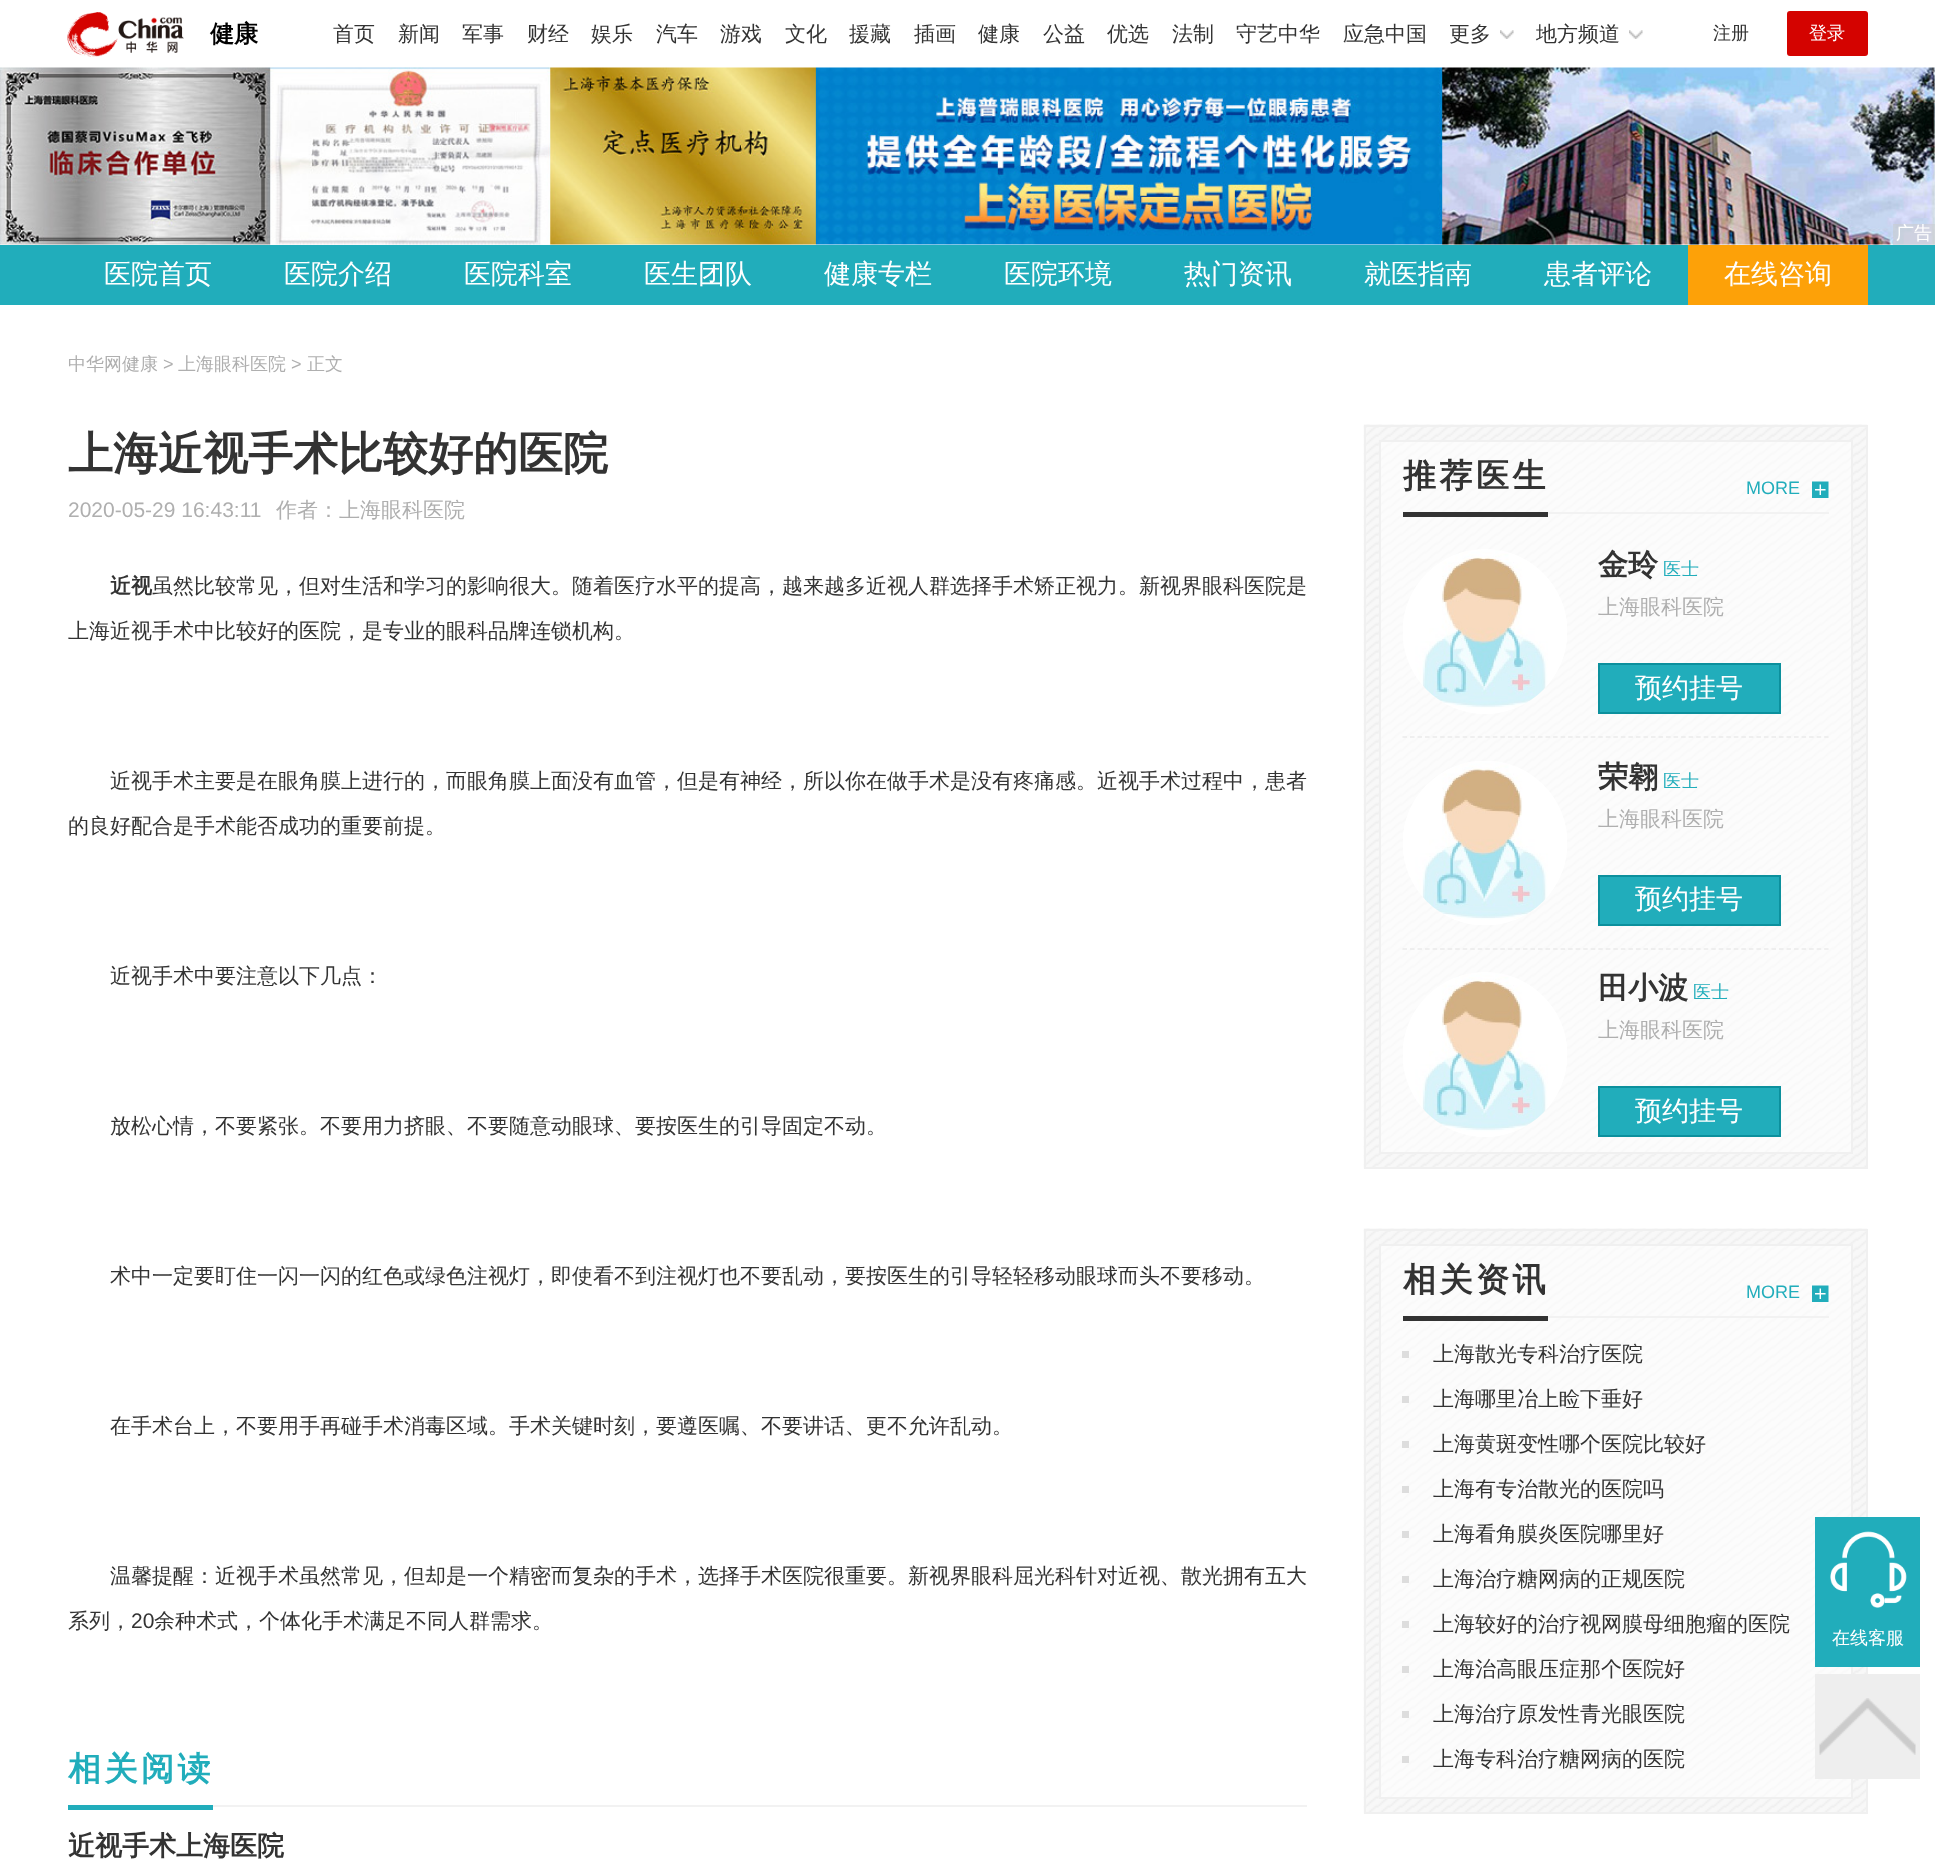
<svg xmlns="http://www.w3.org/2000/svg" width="1935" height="1869">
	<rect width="100%" height="100%" fill="#FFFFFF" />
	<image x="67" y="12" width="117" height="45" href="assets/img1.png" />
	<text x="210" y="42" font-family="WenQuanYi Zen Hei" font-size="24" font-weight="700" fill="#000000">健康</text>
	<g font-family="WenQuanYi Zen Hei" font-size="21" font-weight="500" fill="#333333">
		<text x="333" y="41">首页</text>
		<text x="398" y="41">新闻</text>
		<text x="462" y="41">军事</text>
		<text x="527" y="41">财经</text>
		<text x="591" y="41">娱乐</text>
		<text x="656" y="41">汽车</text>
		<text x="720" y="41">游戏</text>
		<text x="785" y="41">文化</text>
		<text x="849" y="41">援藏</text>
		<text x="914" y="41">插画</text>
		<text x="978" y="41">健康</text>
		<text x="1043" y="41">公益</text>
		<text x="1107" y="41">优选</text>
		<text x="1172" y="41">法制</text>
		<text x="1236" y="41">守艺中华</text>
		<text x="1343" y="41">应急中国</text>
		<text x="1449" y="41">更多</text>
	</g>
	<image x="1500" y="30" width="14" height="9" href="assets/img2.png" />
	<text x="1536" y="41" font-family="WenQuanYi Zen Hei" font-size="21" font-weight="500" fill="#333333">地方频道</text>
	<image x="1629" y="30" width="14" height="9" href="assets/img3.png" />
	<text x="1713" y="39" font-family="WenQuanYi Zen Hei" font-size="18" font-weight="500" fill="#333333">注册</text>
	<rect x="1787" y="11" width="81" height="45" rx="3" fill="#D40300" />
	<text x="1809" y="39" font-family="WenQuanYi Zen Hei" font-size="18" font-weight="500" fill="#FFFFFF">登录</text>
	<image x="0" y="67" width="1935" height="178" href="assets/img4.png" />
	<rect x="1893" y="224" width="42" height="21" fill="#C9C9C9" fill-opacity="0.5" />
	<text x="1896" y="239" font-family="WenQuanYi Zen Hei" font-size="18" font-weight="500" fill="#FFFFFF">广告</text>
	<rect x="0" y="245" width="1935" height="60" fill="#21ADBB" />
	<g font-family="WenQuanYi Zen Hei" font-size="27" font-weight="500" fill="#FFFFFF">
		<text x="104" y="283">医院首页</text>
		<text x="284" y="283">医院介绍</text>
		<text x="464" y="283">医院科室</text>
		<text x="644" y="283">医生团队</text>
		<text x="824" y="283">健康专栏</text>
		<text x="1004" y="283">医院环境</text>
		<text x="1184" y="283">热门资讯</text>
		<text x="1364" y="283">就医指南</text>
		<text x="1544" y="283">患者评论</text>
	</g>
	<rect x="1688" y="245" width="180" height="60" fill="#FDA108" />
	<text x="1724" y="283" font-family="WenQuanYi Zen Hei" font-size="27" font-weight="500" fill="#FFFFFF">在线咨询</text>
	<text x="68" y="370" font-family="WenQuanYi Zen Hei" font-size="18" font-weight="500" fill="#AFAFAF">中华网健康</text>
	<text x="163" y="370" font-family="Liberation Sans" font-size="18" fill="#AFAFAF">&gt;</text>
	<text x="178" y="370" font-family="WenQuanYi Zen Hei" font-size="18" font-weight="500" fill="#AFAFAF">上海眼科医院</text>
	<text x="291" y="370" font-family="Liberation Sans" font-size="18" fill="#AFAFAF">&gt;</text>
	<text x="307" y="370" font-family="WenQuanYi Zen Hei" font-size="18" font-weight="500" fill="#AFAFAF">正文</text>
	<text x="68" y="469" font-family="WenQuanYi Zen Hei" font-size="45" font-weight="700" fill="#333333">上海近视手术比较好的医院</text>
	<text x="68" y="517" font-family="Liberation Sans" font-size="21" fill="#AFAFAF">2020-05-29 16:43:11</text>
	<text x="276" y="517" font-family="WenQuanYi Zen Hei" font-size="21" font-weight="500" fill="#AFAFAF">作者：上海眼科医院</text>
	<text x="110" y="593" font-family="WenQuanYi Zen Hei" font-size="21" font-weight="700" fill="#333333">近视</text>
	<g font-family="WenQuanYi Zen Hei" font-size="21" font-weight="500" fill="#333333">
		<text x="152" y="593">虽然比较常见，但对生活和学习的影响很大。随着医疗水平的提高，越来越多近视人群选择手术矫正视力。新视界眼科医院是</text>
		<text x="68" y="638">上海近视手术中比较好的医院，是专业的眼科品牌连锁机构。</text>
		<text x="110" y="788">近视手术主要是在眼角膜上进行的，而眼角膜上面没有血管，但是有神经，所以你在做手术是没有疼痛感。近视手术过程中，患者</text>
		<text x="68" y="833">的良好配合是手术能否成功的重要前提。</text>
		<text x="110" y="983">近视手术中要注意以下几点：</text>
		<text x="110" y="1133">放松心情，不要紧张。不要用力挤眼、不要随意动眼球、要按医生的引导固定不动。</text>
		<text x="110" y="1283">术中一定要盯住一闪一闪的红色或绿色注视灯，即使看不到注视灯也不要乱动，要按医生的引导轻轻移动眼球而头不要移动。</text>
		<text x="110" y="1433">在手术台上，不要用手再碰手术消毒区域。手术关键时刻，要遵医嘱、不要讲话、更不允许乱动。</text>
		<text x="110" y="1583">温馨提醒：近视手术虽然常见，但却是一个精密而复杂的手术，选择手术医院很重要。新视界眼科屈光科针对近视、散光拥有五大</text>
		<text x="68" y="1628">系列，</text>
	</g>
	<text x="131" y="1628" font-family="Liberation Sans" font-size="21" fill="#333333">20</text>
	<text x="154" y="1628" font-family="WenQuanYi Zen Hei" font-size="21" font-weight="500" fill="#333333">余种术式，个体化手术满足不同人群需求。</text>
	<rect x="213" y="1805" width="1094" height="2" fill="#F2F2F2" />
	<rect x="68" y="1805" width="145" height="5" fill="#21ADBB" />
	<text x="68" y="1780" font-family="WenQuanYi Zen Hei" font-size="33" font-weight="700" letter-spacing="3.5" fill="#21ADBB">相关阅读</text>
	<text x="68" y="1855" font-family="WenQuanYi Zen Hei" font-size="27" font-weight="700" fill="#333333">近视手术上海医院</text>
	<image x="1363" y="424" width="505" height="745" href="assets/img5.png" />
	<rect x="1365" y="426" width="502" height="742" fill="none" stroke="#F0F0F0" stroke-width="2" />
	<rect x="1380" y="441" width="472" height="712" fill="#FFFFFF" fill-opacity="0.6" stroke="#F0F0F0" stroke-width="2" />
	<rect x="1548" y="512" width="281" height="2" fill="#F2F2F2" />
	<rect x="1403" y="512" width="145" height="5" fill="#333333" />
	<text x="1403" y="487" font-family="WenQuanYi Zen Hei" font-size="33" font-weight="700" letter-spacing="3.5" fill="#333333">推荐医生</text>
	<text x="1746" y="494" font-family="Liberation Sans" font-size="18" fill="#21ADBB">MORE</text>
	<image x="1812" y="481" width="17" height="17" href="assets/img6.png" />
	<image x="1403" y="549" width="164" height="165" href="assets/img7.png" />
	<text x="1598" y="575" font-family="WenQuanYi Zen Hei" font-size="30" font-weight="700" fill="#333333">金玲</text>
	<text x="1663" y="575" font-family="WenQuanYi Zen Hei" font-size="18" font-weight="500" fill="#21ADBB">医士</text>
	<text x="1598" y="614" font-family="WenQuanYi Zen Hei" font-size="21" font-weight="500" fill="#AFAFAF">上海眼科医院</text>
	<rect x="1599" y="664" width="181" height="49" fill="#21ADBB" stroke="#0C909D" stroke-width="2" />
	<text x="1635" y="697" font-family="WenQuanYi Zen Hei" font-size="27" font-weight="500" fill="#FFFFFF">预约挂号</text>
	<path d="M1402.5 737H1828.5" fill="none" stroke="#EAEAEA" stroke-width="1.5" stroke-dasharray="4.5 3.03" />
	<image x="1403" y="761" width="164" height="164" href="assets/img8.png" />
	<text x="1598" y="787" font-family="WenQuanYi Zen Hei" font-size="30" font-weight="700" fill="#333333">荣翱</text>
	<text x="1663" y="787" font-family="WenQuanYi Zen Hei" font-size="18" font-weight="500" fill="#21ADBB">医士</text>
	<text x="1598" y="826" font-family="WenQuanYi Zen Hei" font-size="21" font-weight="500" fill="#AFAFAF">上海眼科医院</text>
	<rect x="1599" y="876" width="181" height="49" fill="#21ADBB" stroke="#0C909D" stroke-width="2" />
	<text x="1635" y="908" font-family="WenQuanYi Zen Hei" font-size="27" font-weight="500" fill="#FFFFFF">预约挂号</text>
	<path d="M1402.5 949H1828.5" fill="none" stroke="#EAEAEA" stroke-width="1.5" stroke-dasharray="4.5 3.03" />
	<image x="1403" y="972" width="164" height="165" href="assets/img9.png" />
	<text x="1598" y="998" font-family="WenQuanYi Zen Hei" font-size="30" font-weight="700" fill="#333333">田小波</text>
	<text x="1693" y="998" font-family="WenQuanYi Zen Hei" font-size="18" font-weight="500" fill="#21ADBB">医士</text>
	<text x="1598" y="1037" font-family="WenQuanYi Zen Hei" font-size="21" font-weight="500" fill="#AFAFAF">上海眼科医院</text>
	<rect x="1599" y="1087" width="181" height="49" fill="#21ADBB" stroke="#0C909D" stroke-width="2" />
	<text x="1635" y="1120" font-family="WenQuanYi Zen Hei" font-size="27" font-weight="500" fill="#FFFFFF">预约挂号</text>
	<image x="1363" y="1228" width="505" height="586" href="assets/img10.png" />
	<rect x="1365" y="1230" width="502" height="583" fill="none" stroke="#F0F0F0" stroke-width="2" />
	<rect x="1380" y="1245" width="472" height="553" fill="#FFFFFF" fill-opacity="0.6" stroke="#F0F0F0" stroke-width="2" />
	<rect x="1548" y="1316" width="281" height="2" fill="#F2F2F2" />
	<rect x="1403" y="1316" width="145" height="5" fill="#333333" />
	<text x="1403" y="1291" font-family="WenQuanYi Zen Hei" font-size="33" font-weight="700" letter-spacing="3.5" fill="#333333">相关资讯</text>
	<text x="1746" y="1298" font-family="Liberation Sans" font-size="18" fill="#21ADBB">MORE</text>
	<image x="1812" y="1285" width="17" height="17" href="assets/img6.png" />
	<rect x="1402" y="1351" width="7" height="7" fill="#DDDDDD" />
	<text x="1433" y="1361" font-family="WenQuanYi Zen Hei" font-size="21" font-weight="500" fill="#333333">上海散光专科治疗医院</text>
	<rect x="1402" y="1396" width="7" height="7" fill="#DDDDDD" />
	<text x="1433" y="1406" font-family="WenQuanYi Zen Hei" font-size="21" font-weight="500" fill="#333333">上海哪里冶上睑下垂好</text>
	<rect x="1402" y="1441" width="7" height="7" fill="#DDDDDD" />
	<text x="1433" y="1451" font-family="WenQuanYi Zen Hei" font-size="21" font-weight="500" fill="#333333">上海黄斑变性哪个医院比较好</text>
	<rect x="1402" y="1486" width="7" height="7" fill="#DDDDDD" />
	<text x="1433" y="1496" font-family="WenQuanYi Zen Hei" font-size="21" font-weight="500" fill="#333333">上海有专治散光的医院吗</text>
	<rect x="1402" y="1531" width="7" height="7" fill="#DDDDDD" />
	<text x="1433" y="1541" font-family="WenQuanYi Zen Hei" font-size="21" font-weight="500" fill="#333333">上海看角膜炎医院哪里好</text>
	<rect x="1402" y="1576" width="7" height="7" fill="#DDDDDD" />
	<text x="1433" y="1586" font-family="WenQuanYi Zen Hei" font-size="21" font-weight="500" fill="#333333">上海治疗糖网病的正规医院</text>
	<rect x="1402" y="1621" width="7" height="7" fill="#DDDDDD" />
	<text x="1433" y="1631" font-family="WenQuanYi Zen Hei" font-size="21" font-weight="500" fill="#333333">上海较好的治疗视网膜母细胞瘤的医院</text>
	<rect x="1402" y="1666" width="7" height="7" fill="#DDDDDD" />
	<text x="1433" y="1676" font-family="WenQuanYi Zen Hei" font-size="21" font-weight="500" fill="#333333">上海治高眼压症那个医院好</text>
	<rect x="1402" y="1711" width="7" height="7" fill="#DDDDDD" />
	<text x="1433" y="1721" font-family="WenQuanYi Zen Hei" font-size="21" font-weight="500" fill="#333333">上海治疗原发性青光眼医院</text>
	<rect x="1402" y="1756" width="7" height="7" fill="#DDDDDD" />
	<text x="1433" y="1766" font-family="WenQuanYi Zen Hei" font-size="21" font-weight="500" fill="#333333">上海专科治疗糖网病的医院</text>
	<rect x="1815" y="1517" width="105" height="150" fill="#21ADBB" />
	<image x="1830" y="1531" width="77" height="77" href="assets/img11.png" />
	<text x="1832" y="1644" font-family="WenQuanYi Zen Hei" font-size="18" font-weight="500" fill="#FFFFFF">在线客服</text>
	<rect x="1815" y="1674" width="105" height="105" fill="#EEEEEE" />
	<image x="1819" y="1698" width="97" height="57" href="assets/img12.png" />
</svg>
